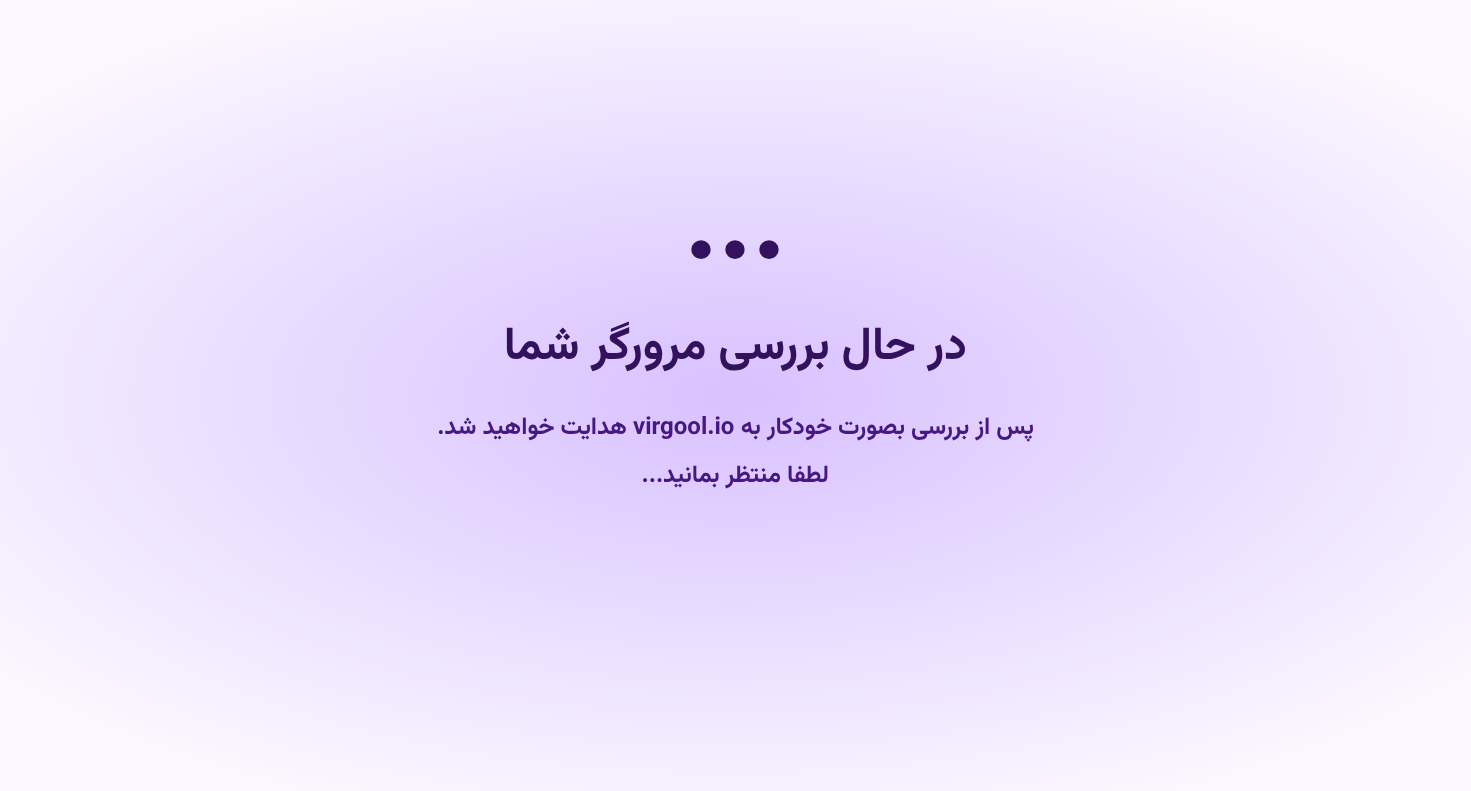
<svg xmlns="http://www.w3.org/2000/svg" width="1471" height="791">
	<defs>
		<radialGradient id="g1" gradientUnits="userSpaceOnUse" cx="0" cy="0" r="1" gradientTransform="matrix(938 0 0 444 736 396)"><stop offset="0" stop-color="#D8C1FF" /><stop offset="1" stop-color="#FAF7FF" /></radialGradient>
	</defs>
	<rect width="100%" height="100%" fill="#FFFFFF" />
	<rect x="0" y="0" width="1471" height="791" fill="url(#g1)" />
	<text x="684" y="259" font-family="Vazirmatn" font-size="114" font-weight="700" fill="#33115D">...</text>
	<text x="967" y="359" font-family="Vazirmatn" font-size="46" font-weight="700" direction="rtl" fill="#33115D">در حال بررسی مرورگر شما</text>
	<text x="1034" y="434" font-family="Vazirmatn" font-size="24" font-weight="700" direction="rtl" fill="#471882">پس از بررسی بصورت خودکار به</text>
	<text x="633" y="434" font-family="Vazirmatn" font-size="24" font-weight="700" fill="#471882">virgool.io</text>
	<g font-family="Vazirmatn" font-size="24" font-weight="700" direction="rtl" fill="#471882">
		<text x="627" y="434">هدایت خواهید شد.</text>
		<text x="829" y="482">لطفا منتظر بمانید...</text>
	</g>
</svg>
